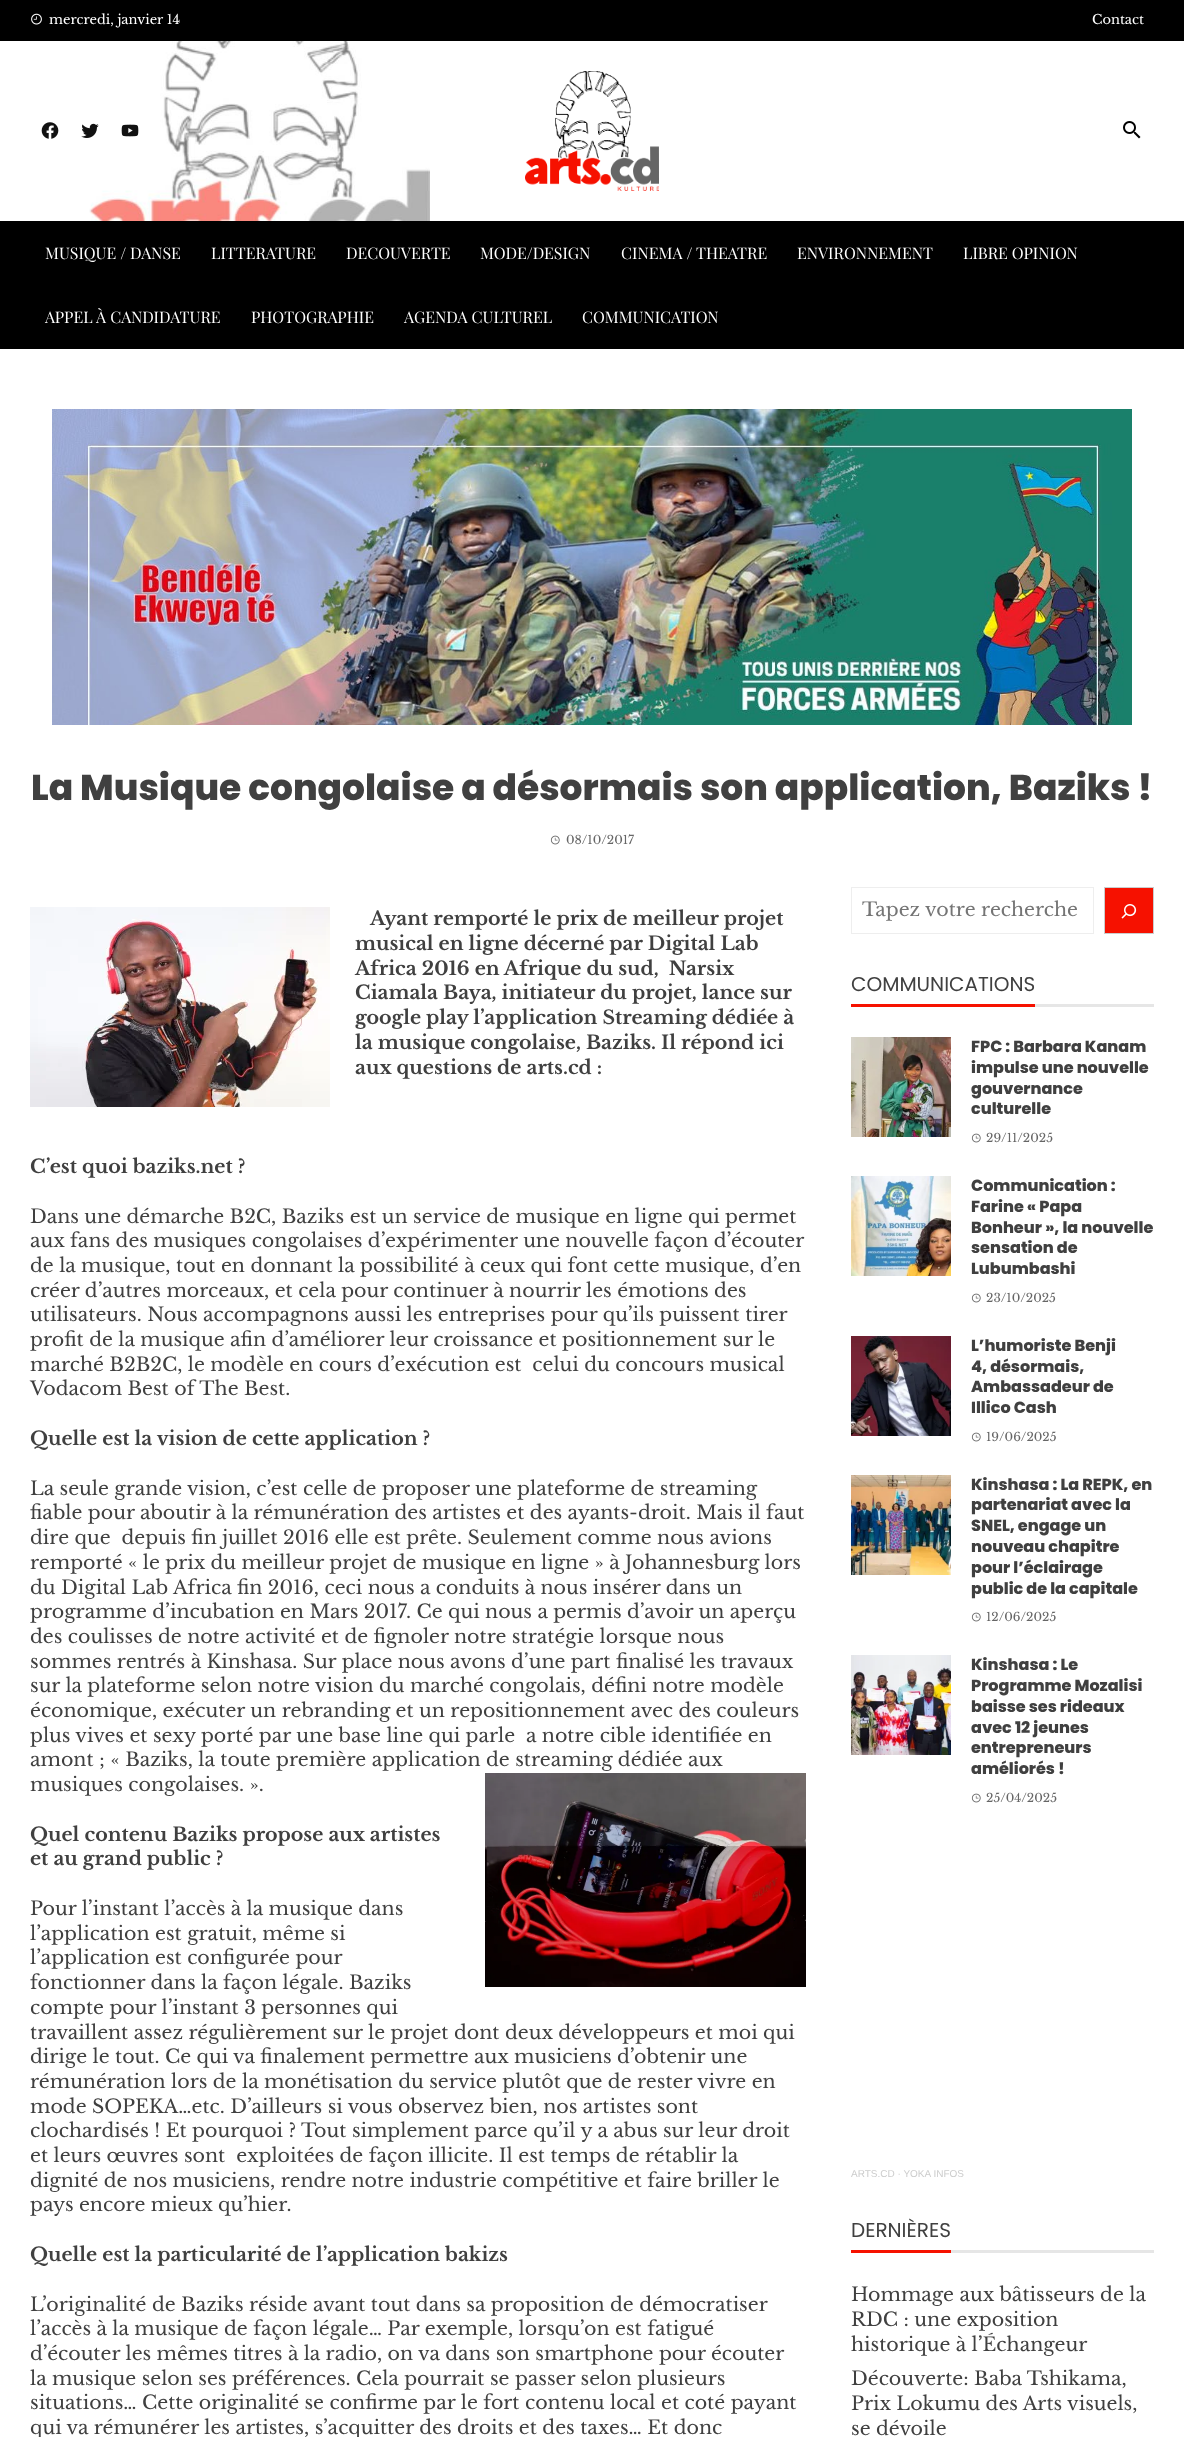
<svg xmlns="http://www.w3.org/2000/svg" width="1184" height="2437">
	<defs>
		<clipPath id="clip1"><rect x="862" y="898" width="217" height="23" /></clipPath>
	</defs>
	<rect width="100%" height="100%" fill="#FFFFFF" />
	<rect x="0" y="0" width="1184" height="41" fill="#000000" />
	<image x="31" y="13" width="11" height="12" href="assets/img1.png" />
	<g font-family="Libre Baskerville" font-size="13" fill="#FFFFFF">
		<text x="49" y="24">mercredi, janvier 14</text>
		<text x="1092" y="24">Contact</text>
	</g>
	<image x="89" y="41" width="341" height="180" href="assets/img2.png" />
	<image x="41" y="122" width="18" height="17" href="assets/img3.png" />
	<image x="81" y="123" width="18" height="15" href="assets/img4.png" />
	<image x="121" y="124" width="18" height="13" href="assets/img5.png" />
	<image x="525" y="71" width="134" height="120" href="assets/img6.png" />
	<image x="1123" y="121" width="18" height="18" href="assets/img7.png" />
	<rect x="0" y="221" width="1184" height="128" fill="#000000" />
	<g font-family="Playfair Display" font-size="16" fill="#FFFFFF">
		<text x="45" y="259">MUSIQUE / DANSE</text>
		<text x="211" y="259">LITTERATURE</text>
		<text x="346" y="259">DECOUVERTE</text>
		<text x="480" y="259">MODE/DESIGN</text>
		<text x="621" y="259">CINEMA / THEATRE</text>
		<text x="797" y="259">ENVIRONNEMENT</text>
		<text x="963" y="259">LIBRE OPINION</text>
		<text x="45" y="323">APPEL À CANDIDATURE</text>
		<text x="251" y="323">PHOTOGRAPHIE</text>
		<text x="404" y="323">AGENDA CULTUREL</text>
		<text x="582" y="323">COMMUNICATION</text>
	</g>
	<image x="52" y="409" width="1080" height="316" href="assets/img8.png" />
	<text x="31" y="800" font-family="Poppins" font-size="36" font-weight="800" fill="#404040">La Musique congolaise a désormais son application, Baziks !</text>
	<image x="550" y="835" width="10" height="10" href="assets/img9.png" />
	<text x="566" y="844" font-family="Libre Baskerville" font-size="12" fill="#666666">08/10/2017</text>
	<image x="30" y="907" width="300" height="200" href="assets/img10.png" />
	<g font-family="Libre Baskerville" font-size="19" font-weight="700" fill="#404040">
		<text x="370" y="925">Ayant remporté le prix de meilleur projet</text>
		<text x="355" y="950">musical en ligne décerné par Digital Lab</text>
		<text x="355" y="975" xml:space="preserve">Africa 2016 en Afrique du sud,  Narsix</text>
		<text x="355" y="999">Ciamala Baya, initiateur du projet, lance sur</text>
		<text x="355" y="1024">google play l’application Streaming dédiée à</text>
		<text x="355" y="1049">la musique congolaise, Baziks. Il répond ici</text>
		<text x="355" y="1074">aux questions de arts.cd :</text>
		<text x="30" y="1173">C’est quoi baziks.net ?</text>
	</g>
	<g font-family="Libre Baskerville" font-size="19" fill="#404040">
		<text x="30" y="1223">Dans une démarche B2C, Baziks est un service de musique en ligne qui permet</text>
		<text x="30" y="1247">aux fans des musiques congolaises d’expérimenter une nouvelle façon d’écouter</text>
		<text x="30" y="1272">de la musique, tout en donnant la possibilité à ceux qui font cette musique, d’en</text>
		<text x="30" y="1297">créer d’autres morceaux, et cela pour continuer à nourrir les émotions des</text>
		<text x="30" y="1321">utilisateurs. Nous accompagnons aussi les entreprises pour qu’ils puissent tirer</text>
		<text x="30" y="1346">profit de la musique afin d’améliorer leur croissance et positionnement sur le</text>
		<text x="30" y="1371" xml:space="preserve">marché B2B2C, le modèle en cours d’exécution est  celui du concours musical</text>
		<text x="30" y="1395">Vodacom Best of The Best.</text>
	</g>
	<text x="30" y="1445" font-family="Libre Baskerville" font-size="19" font-weight="700" fill="#404040">Quelle est la vision de cette application ?</text>
	<g font-family="Libre Baskerville" font-size="19" fill="#404040">
		<text x="30" y="1495">La seule grande vision, c’est celle de proposer une plateforme de streaming</text>
		<text x="30" y="1519">fiable pour aboutir à la rémunération des artistes et des ayants-droit. Mais il faut</text>
		<text x="30" y="1544" xml:space="preserve">dire que  depuis fin juillet 2016 elle est prête. Seulement comme nous avions</text>
		<text x="30" y="1569">remporté « le prix du meilleur projet de musique en ligne » à Johannesburg lors</text>
		<text x="30" y="1594">du Digital Lab Africa fin 2016, ceci nous a conduits à nous insérer dans un</text>
		<text x="30" y="1618">programme d’incubation en Mars 2017. Ce qui nous a permis d’avoir un aperçu</text>
		<text x="30" y="1643">des coulisses de notre activité et de fignoler notre stratégie lorsque nous</text>
		<text x="30" y="1668">sommes rentrés à Kinshasa. Sur place nous avons d’une part finalisé les travaux</text>
		<text x="30" y="1692">sur la plateforme selon notre vision du marché congolais, défini notre modèle</text>
		<text x="30" y="1717">économique, exécuter un rebranding et un repositionnement avec des couleurs</text>
		<text x="30" y="1742" xml:space="preserve">plus vives et sexy porté par une base line qui parle  a notre cible identifiée en</text>
		<text x="30" y="1766">amont ; « Baziks, la toute première application de streaming dédiée aux</text>
		<text x="30" y="1791">musiques congolaises. ».</text>
	</g>
	<image x="485" y="1773" width="321" height="214" href="assets/img11.png" />
	<g font-family="Libre Baskerville" font-size="19" font-weight="700" fill="#404040">
		<text x="30" y="1841">Quel contenu Baziks propose aux artistes</text>
		<text x="30" y="1865">et au grand public ?</text>
	</g>
	<g font-family="Libre Baskerville" font-size="19" fill="#404040">
		<text x="30" y="1915">Pour l’instant l’accès à la musique dans</text>
		<text x="30" y="1940">l’application est gratuit, même si</text>
		<text x="30" y="1964">l’application est configurée pour</text>
		<text x="30" y="1989">fonctionner dans la façon légale. Baziks</text>
		<text x="30" y="2014">compte pour l’instant 3 personnes qui</text>
		<text x="30" y="2039">travaillent assez régulièrement sur le projet dont deux développeurs et moi qui</text>
		<text x="30" y="2063">dirige le tout. Ce qui va finalement permettre aux musiciens d’obtenir une</text>
		<text x="30" y="2088">rémunération lors de la monétisation du service plutôt que de rester vivre en</text>
		<text x="30" y="2113">mode SOPEKA…etc. D’ailleurs si vous observez bien, nos artistes sont</text>
		<text x="30" y="2137">clochardisés ! Et pourquoi ? Tout simplement parce qu’il y a abus sur leur droit</text>
		<text x="30" y="2162" xml:space="preserve">et leurs œuvres sont  exploitées de façon illicite. Il est temps de rétablir la</text>
		<text x="30" y="2187">dignité de nos musiciens, rendre notre industrie compétitive et faire briller le</text>
		<text x="30" y="2211">pays encore mieux qu’hier.</text>
	</g>
	<text x="30" y="2261" font-family="Libre Baskerville" font-size="19" font-weight="700" fill="#404040">Quelle est la particularité de l’application bakizs</text>
	<g font-family="Libre Baskerville" font-size="19" fill="#404040">
		<text x="30" y="2311">L’originalité de Baziks réside avant tout dans sa proposition de démocratiser</text>
		<text x="30" y="2335">l’accès à la musique de façon légale… Par exemple, lorsqu’on est fatigué</text>
		<text x="30" y="2360">d’écouter les mêmes titres à la radio, on va dans son smartphone pour écouter</text>
		<text x="30" y="2385">la musique selon ses préférences. Cela pourrait se passer selon plusieurs</text>
		<text x="30" y="2409">situations… Cette originalité se confirme par le fort contenu local et coté payant</text>
		<text x="30" y="2434">qui va rémunérer les artistes, s’acquitter des droits et des taxes… Et donc</text>
	</g>
	<rect x="851.5" y="887.5" width="242" height="46" fill="none" stroke="#EEEEEE" />
	<g clip-path="url(#clip1)">
		<text x="862" y="916" font-family="Libre Baskerville" font-size="19" fill="#757575">Tapez votre recherche</text>
	</g>
	<rect x="1104.5" y="887.5" width="49" height="46" fill="#F61100" stroke="#CCCCCC" />
	<image x="1121" y="904" width="16" height="15" href="assets/img12.png" />
	<rect x="1035" y="1004" width="119" height="3" fill="#E6E6E6" />
	<text x="851" y="991" font-family="Poppins" font-size="20" fill="#404040">COMMUNICATIONS</text>
	<rect x="851" y="1004" width="184" height="3" fill="#F61100" />
	<image x="851" y="1037" width="100" height="100" href="assets/img13.png" />
	<g font-family="Poppins" font-size="16" font-weight="800" fill="#404040">
		<text x="971" y="1052">FPC : Barbara Kanam</text>
		<text x="971" y="1073">impulse une nouvelle</text>
		<text x="971" y="1094">gouvernance</text>
		<text x="971" y="1114">culturelle</text>
	</g>
	<image x="971" y="1133" width="10" height="10" href="assets/img9.png" />
	<text x="986" y="1142" font-family="Libre Baskerville" font-size="12" fill="#666666">29/11/2025</text>
	<image x="851" y="1176" width="100" height="100" href="assets/img14.png" />
	<g font-family="Poppins" font-size="16" font-weight="800" fill="#404040">
		<text x="971" y="1191">Communication :</text>
		<text x="971" y="1212">Farine « Papa</text>
		<text x="971" y="1233">Bonheur », la nouvelle</text>
		<text x="971" y="1253">sensation de</text>
		<text x="971" y="1274">Lubumbashi</text>
	</g>
	<image x="971" y="1293" width="10" height="10" href="assets/img9.png" />
	<text x="986" y="1302" font-family="Libre Baskerville" font-size="12" fill="#666666">23/10/2025</text>
	<image x="851" y="1336" width="100" height="100" href="assets/img15.png" />
	<g font-family="Poppins" font-size="16" font-weight="800" fill="#404040">
		<text x="971" y="1351">L’humoriste Benji</text>
		<text x="971" y="1372">4, désormais,</text>
		<text x="971" y="1392">Ambassadeur de</text>
		<text x="971" y="1413">Illico Cash</text>
	</g>
	<image x="971" y="1432" width="10" height="10" href="assets/img9.png" />
	<text x="986" y="1441" font-family="Libre Baskerville" font-size="12" fill="#666666">19/06/2025</text>
	<image x="851" y="1475" width="100" height="100" href="assets/img16.png" />
	<g font-family="Poppins" font-size="16" font-weight="800" fill="#404040">
		<text x="971" y="1490">Kinshasa : La REPK, en</text>
		<text x="971" y="1510">partenariat avec la</text>
		<text x="971" y="1531">SNEL, engage un</text>
		<text x="971" y="1552">nouveau chapitre</text>
		<text x="971" y="1573">pour l’éclairage</text>
		<text x="971" y="1594">public de la capitale</text>
	</g>
	<image x="971" y="1612" width="10" height="10" href="assets/img9.png" />
	<text x="986" y="1621" font-family="Libre Baskerville" font-size="12" fill="#666666">12/06/2025</text>
	<image x="851" y="1655" width="100" height="100" href="assets/img17.png" />
	<g font-family="Poppins" font-size="16" font-weight="800" fill="#404040">
		<text x="971" y="1670">Kinshasa : Le</text>
		<text x="971" y="1691">Programme Mozalisi</text>
		<text x="971" y="1712">baisse ses rideaux</text>
		<text x="971" y="1733">avec 12 jeunes</text>
		<text x="971" y="1753">entrepreneurs</text>
		<text x="971" y="1774">améliorés !</text>
	</g>
	<image x="971" y="1793" width="10" height="10" href="assets/img9.png" />
	<text x="986" y="1802" font-family="Libre Baskerville" font-size="12" fill="#666666">25/04/2025</text>
	<text x="851" y="2177" font-family="Liberation Sans" font-size="10" fill="#CCCCCC">ARTS.CD · YOKA INFOS</text>
	<rect x="951" y="2250" width="203" height="3" fill="#E6E6E6" />
	<text x="851" y="2237" font-family="Poppins" font-size="20" fill="#404040">DERNIÈRES</text>
	<rect x="851" y="2250" width="100" height="3" fill="#F61100" />
	<g font-family="Libre Baskerville" font-size="19" fill="#404040">
		<text x="851" y="2301">Hommage aux bâtisseurs de la</text>
		<text x="851" y="2326">RDC : une exposition</text>
		<text x="851" y="2351">historique à l’Échangeur</text>
		<text x="851" y="2385">Découverte: Baba Tshikama,</text>
		<text x="851" y="2410">Prix Lokumu des Arts visuels,</text>
		<text x="851" y="2435">se dévoile</text>
	</g>
</svg>
